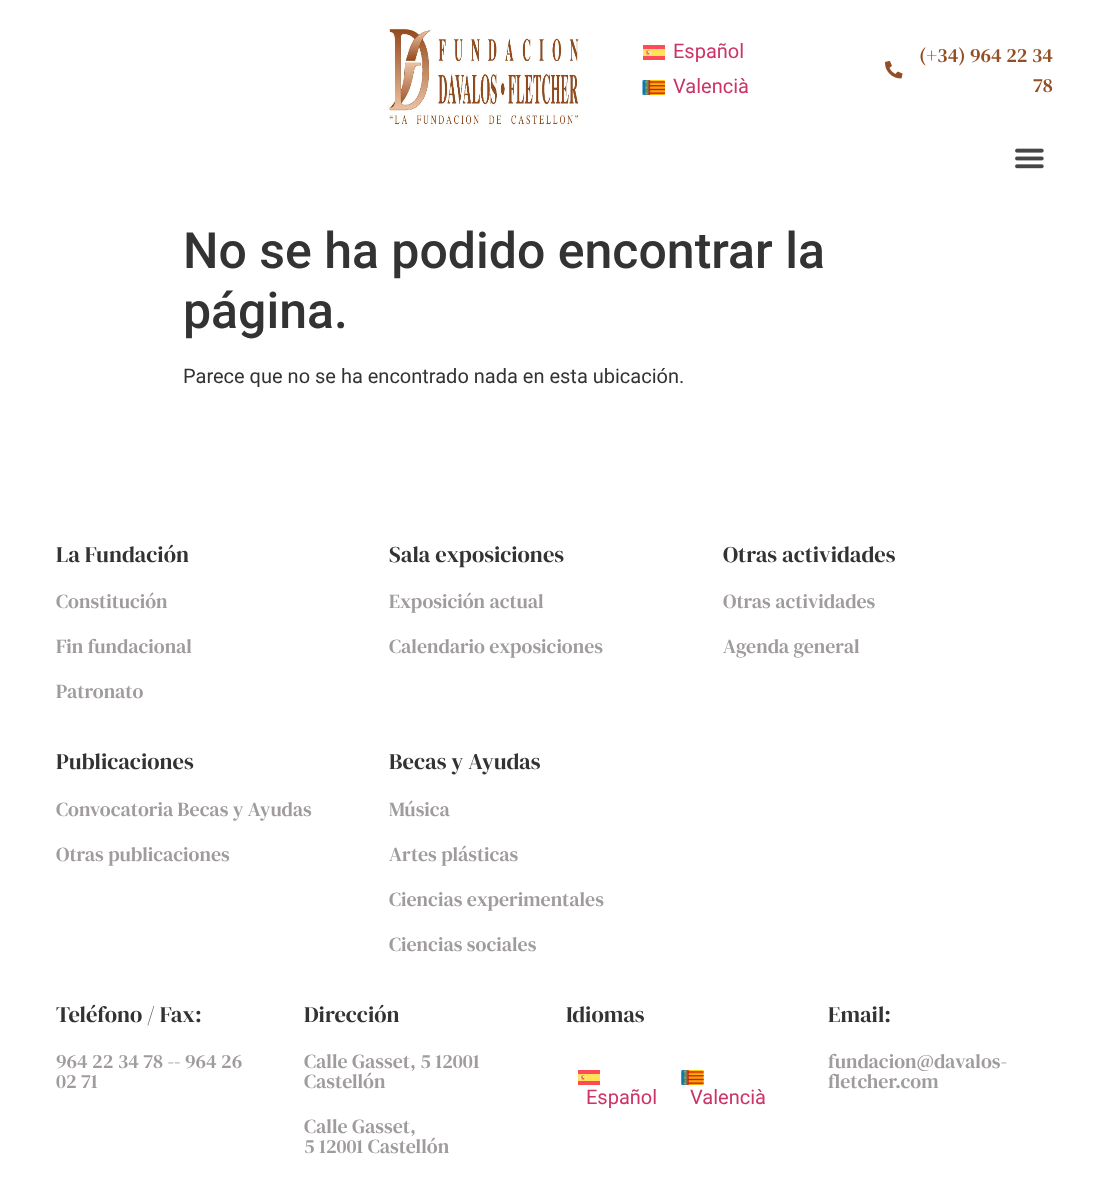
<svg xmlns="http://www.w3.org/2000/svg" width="1115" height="1191">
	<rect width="100%" height="100%" fill="#FFFFFF" />
	<image x="387" y="28" width="193" height="98" href="assets/img1.png" />
	<image x="643" y="45" width="22" height="15" href="assets/img2.png" />
	<text x="673" y="58" font-family="Roboto" font-size="20" fill="#CC3366">Español</text>
	<image x="642" y="80" width="23" height="15" href="assets/img3.png" />
	<text x="673" y="93" font-family="Roboto" font-size="20" fill="#CC3366">Valencià</text>
	<image x="885" y="61" width="18" height="18" href="assets/img4.png" />
	<g font-family="DM Serif Text" font-size="20" fill="#934E23">
		<text x="919" y="62">(+34) 964 22 34</text>
		<text x="1033" y="92">78</text>
	</g>
	<image x="1015" y="148" width="29" height="21" href="assets/img5.png" />
	<g font-family="Roboto" font-size="50" font-weight="500" fill="#333333">
		<text x="183" y="268">No se ha podido encontrar la</text>
		<text x="183" y="328">página.</text>
	</g>
	<text x="183" y="383" font-family="Roboto" font-size="20" fill="#333333">Parece que no se ha encontrado nada en esta ubicación.</text>
	<text x="56" y="562" font-family="DM Serif Display" font-size="22.5" fill="#333333">La Fundación</text>
	<g font-family="DM Serif Text" font-size="20" fill="#A09C9C">
		<text x="56" y="608">Constitución</text>
		<text x="56" y="653">Fin fundacional</text>
		<text x="56" y="698">Patronato</text>
	</g>
	<text x="389" y="562" font-family="DM Serif Display" font-size="22.5" fill="#333333">Sala exposiciones</text>
	<g font-family="DM Serif Text" font-size="20" fill="#A09C9C">
		<text x="389" y="608">Exposición actual</text>
		<text x="389" y="653">Calendario exposiciones</text>
	</g>
	<text x="723" y="562" font-family="DM Serif Display" font-size="22.5" fill="#333333">Otras actividades</text>
	<g font-family="DM Serif Text" font-size="20" fill="#A09C9C">
		<text x="723" y="608">Otras actividades</text>
		<text x="723" y="653">Agenda general</text>
	</g>
	<text x="56" y="769" font-family="DM Serif Display" font-size="22.5" fill="#333333">Publicaciones</text>
	<g font-family="DM Serif Text" font-size="20" fill="#A09C9C">
		<text x="56" y="816">Convocatoria Becas y Ayudas</text>
		<text x="56" y="861">Otras publicaciones</text>
	</g>
	<text x="389" y="769" font-family="DM Serif Display" font-size="22.5" fill="#333333">Becas y Ayudas</text>
	<g font-family="DM Serif Text" font-size="20" fill="#A09C9C">
		<text x="389" y="816">Música</text>
		<text x="389" y="861">Artes plásticas</text>
		<text x="389" y="906">Ciencias experimentales</text>
		<text x="389" y="951">Ciencias sociales</text>
	</g>
	<text x="56" y="1022" font-family="DM Serif Display" font-size="22.5" fill="#333333">Teléfono / Fax:</text>
	<g font-family="DM Serif Text" font-size="20" fill="#A09C9C">
		<text x="56" y="1068">964 22 34 78 -- 964 26</text>
		<text x="56" y="1088">02 71</text>
	</g>
	<text x="304" y="1022" font-family="DM Serif Display" font-size="22.5" fill="#333333">Dirección</text>
	<g font-family="DM Serif Text" font-size="20" fill="#A09C9C">
		<text x="304" y="1068">Calle Gasset, 5 12001</text>
		<text x="304" y="1088">Castellón</text>
		<text x="304" y="1133">Calle Gasset,</text>
		<text x="304" y="1153">5 12001 Castellón</text>
	</g>
	<text x="566" y="1022" font-family="DM Serif Display" font-size="22.5" fill="#333333">Idiomas</text>
	<image x="578" y="1070" width="22" height="15" href="assets/img2.png" />
	<text x="586" y="1104" font-family="Roboto" font-size="20" fill="#CC3366">Español</text>
	<image x="681" y="1070" width="23" height="15" href="assets/img6.png" />
	<text x="690" y="1104" font-family="Roboto" font-size="20" fill="#CC3366">Valencià</text>
	<text x="828" y="1022" font-family="DM Serif Display" font-size="22.5" fill="#333333">Email:</text>
	<g font-family="DM Serif Text" font-size="20" fill="#A09C9C">
		<text x="828" y="1068">fundacion@davalos-</text>
		<text x="828" y="1088">fletcher.com</text>
	</g>
</svg>
